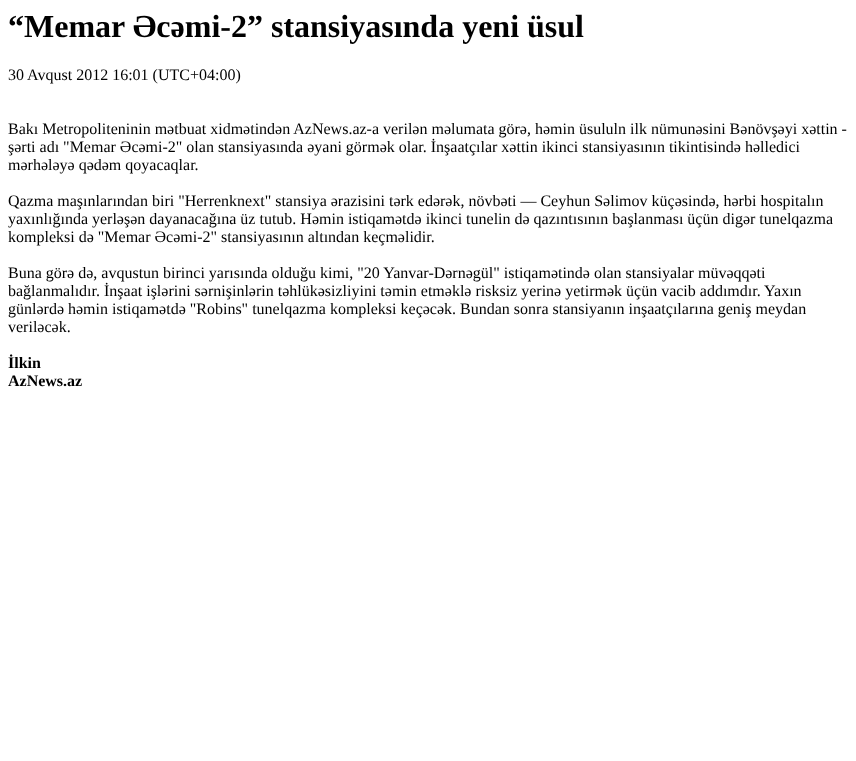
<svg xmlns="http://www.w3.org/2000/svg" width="856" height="761">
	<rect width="100%" height="100%" fill="#FFFFFF" />
	<text x="8" y="37" font-family="Liberation Serif" font-size="32" font-weight="700" fill="#000000">“Memar Əcəmi-2” stansiyasında yeni üsul</text>
	<g font-family="Liberation Serif" font-size="16" fill="#000000">
		<text x="8" y="80">30 Avqust 2012 16:01 (UTC+04:00)</text>
		<text x="8" y="134">Bakı Metropoliteninin mətbuat xidmətindən AzNews.az-a verilən məlumata görə, həmin üsululn ilk nümunəsini Bənövşəyi xəttin -</text>
		<text x="8" y="152">şərti adı "Memar Əcəmi-2" olan stansiyasında əyani görmək olar. İnşaatçılar xəttin ikinci stansiyasının tikintisində həlledici</text>
		<text x="8" y="170">mərhələyə qədəm qoyacaqlar.</text>
		<text x="8" y="206">Qazma maşınlarından biri "Herrenknext" stansiya ərazisini tərk edərək, növbəti — Ceyhun Səlimov küçəsində, hərbi hospitalın</text>
		<text x="8" y="224">yaxınlığında yerləşən dayanacağına üz tutub. Həmin istiqamətdə ikinci tunelin də qazıntısının başlanması üçün digər tunelqazma</text>
		<text x="8" y="242">kompleksi də "Memar Əcəmi-2" stansiyasının altından keçməlidir.</text>
		<text x="8" y="278">Buna görə də, avqustun birinci yarısında olduğu kimi, "20 Yanvar-Dərnəgül" istiqamətində olan stansiyalar müvəqqəti</text>
		<text x="8" y="296">bağlanmalıdır. İnşaat işlərini sərnişinlərin təhlükəsizliyini təmin etməklə risksiz yerinə yetirmək üçün vacib addımdır. Yaxın</text>
		<text x="8" y="314">günlərdə həmin istiqamətdə "Robins" tunelqazma kompleksi keçəcək. Bundan sonra stansiyanın inşaatçılarına geniş meydan</text>
		<text x="8" y="332">veriləcək.</text>
	</g>
	<g font-family="Liberation Serif" font-size="16" font-weight="700" fill="#000000">
		<text x="8" y="368">İlkin</text>
		<text x="8" y="386">AzNews.az</text>
	</g>
</svg>
